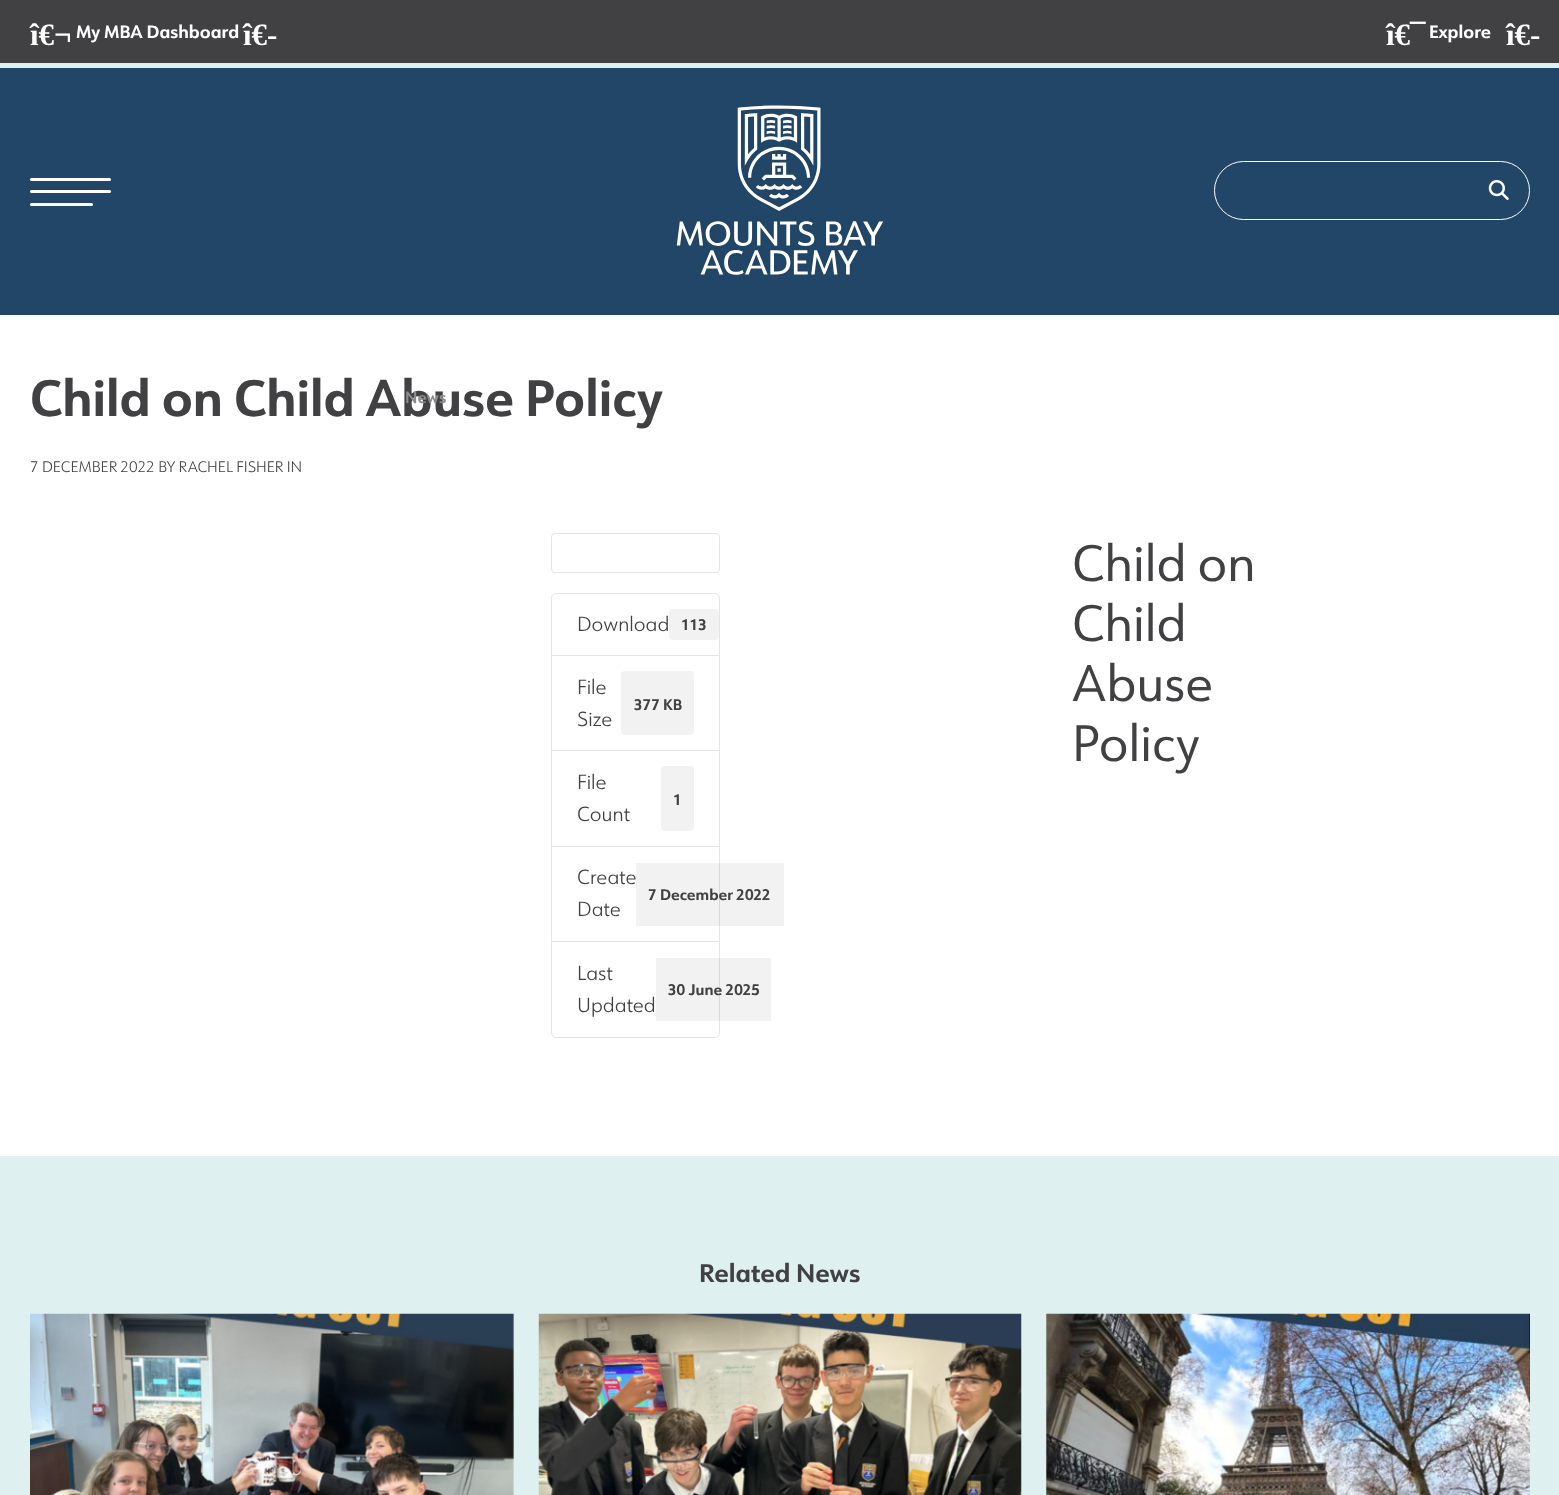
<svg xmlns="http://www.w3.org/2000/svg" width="1559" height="1495">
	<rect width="100%" height="100%" fill="#DFF0F0" />
	<rect x="0" y="0" width="1559" height="63" fill="#414042" />
	<text x="30" y="45" font-family="Liberation Serif" font-size="31" font-weight="700" fill="#FFFFFF">î€¬</text>
	<text x="76" y="38" font-family="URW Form" font-size="17.5" font-weight="700" fill="#FFFFFF">My MBA Dashboard</text>
	<g font-family="Liberation Serif" font-size="31" font-weight="700" fill="#FFFFFF">
		<text x="243" y="45">î€-</text>
		<text x="1386" y="45">î€¯</text>
	</g>
	<text x="1429" y="38" font-family="URW Form" font-size="17.5" font-weight="700" fill="#FFFFFF">Explore</text>
	<text x="1506" y="45" font-family="Liberation Serif" font-size="31" font-weight="700" fill="#FFFFFF">î€-</text>
	<rect x="0" y="315" width="1559" height="841" fill="#FFFFFF" />
	<text x="30" y="416" font-family="URW Form" font-size="50" font-weight="700" fill="#414042">Child on Child Abuse Policy</text>
	<text x="30" y="472" font-family="URW Form" font-size="15" font-weight="300" fill="#414042">7 DECEMBER 2022 BY RACHEL FISHER IN</text>
	<rect x="551.5" y="533.5" width="168" height="39" rx="3.5" fill="none" stroke="#E5E5E5" />
	<path d="M556 593.5H715C717.5 593.5 719.5 595.5 719.5 598V655.5H551.5V598C551.5 595.5 553.5 593.5 556 593.5Z" fill="none" stroke="#E5E5E5" />
	<text x="577" y="631" font-family="URW Form" font-size="20" font-weight="300" fill="#414042">Download</text>
	<rect x="669" y="609" width="50" height="31" rx="4" fill="#F2F2F2" />
	<text x="681" y="630" font-family="URW Form" font-size="15" font-weight="700" fill="#414042">113</text>
	<rect x="551.5" y="655.5" width="168" height="95" fill="none" stroke="#E5E5E5" />
	<text x="577" y="694" font-family="URW Form" font-size="20" font-weight="300" fill="#414042">File</text>
	<rect x="621" y="671" width="73" height="64" rx="4" fill="#F2F2F2" />
	<text x="634" y="710" font-family="URW Form" font-size="15" font-weight="700" fill="#414042">377 KB</text>
	<text x="577" y="726" font-family="URW Form" font-size="20" font-weight="300" fill="#414042">Size</text>
	<rect x="551.5" y="750.5" width="168" height="97" fill="none" stroke="#E5E5E5" />
	<text x="577" y="789" font-family="URW Form" font-size="20" font-weight="300" fill="#414042">File</text>
	<rect x="661" y="766" width="33" height="65" rx="4" fill="#F2F2F2" />
	<text x="673" y="805" font-family="URW Form" font-size="15" font-weight="700" fill="#414042">1</text>
	<text x="577" y="821" font-family="URW Form" font-size="20" font-weight="300" fill="#414042">Count</text>
	<rect x="552" y="847" width="167" height="1" fill="#FFFFFF" />
	<rect x="551.5" y="846.5" width="168" height="96" fill="none" stroke="#E5E5E5" />
	<text x="577" y="884" font-family="URW Form" font-size="20" font-weight="300" fill="#414042">Create</text>
	<rect x="636" y="863" width="148" height="63" fill="#000000" fill-opacity="0.05" />
	<text x="648" y="900" font-family="URW Form" font-size="15" font-weight="700" fill="#414042">7 December 2022</text>
	<text x="577" y="916" font-family="URW Form" font-size="20" font-weight="300" fill="#414042">Date</text>
	<path d="M551.5 941.5H719.5V1033C719.5 1035.5 717.5 1037.5 715 1037.5H556C553.5 1037.5 551.5 1035.5 551.5 1033Z" fill="#FFFFFF" stroke="#E5E5E5" />
	<text x="577" y="980" font-family="URW Form" font-size="20" font-weight="300" fill="#414042">Last</text>
	<rect x="656" y="958" width="115" height="63" fill="#000000" fill-opacity="0.05" />
	<text x="668" y="995" font-family="URW Form" font-size="15" font-weight="700" fill="#414042">30 June 2025</text>
	<text x="577" y="1012" font-family="URW Form" font-size="20" font-weight="300" fill="#414042">Updated</text>
	<g font-family="URW Form" font-size="50" fill="#414042">
		<text x="1072" y="581">Child on</text>
		<text x="1072" y="641">Child</text>
		<text x="1072" y="701">Abuse</text>
		<text x="1072" y="761">Policy</text>
	</g>
	<rect x="0" y="68" width="1559" height="247" fill="#214667" />
	<rect x="30" y="178" width="81" height="3" rx="1.5" fill="#FFFFFF" />
	<rect x="30" y="190" width="81" height="3" rx="1.5" fill="#FFFFFF" />
	<rect x="30" y="203" width="63" height="3" rx="1.5" fill="#FFFFFF" />
	<image x="676" y="105" width="208" height="170" href="assets/img1.png" />
	<rect x="1214.5" y="161.5" width="315" height="58" rx="29" fill="none" stroke="#FFFFFF" />
	<image x="1488" y="180" width="21" height="20" href="assets/img2.png" />
	<text x="405" y="403" font-family="URW Form" font-size="16" font-weight="700" fill="#8B8A8C">News</text>
	<text x="699" y="1282" font-family="URW Form" font-size="25" font-weight="700" fill="#414042">Related News</text>
	<image x="30" y="1313" width="484" height="182" href="assets/img3.png" />
	<image x="538" y="1313" width="484" height="182" href="assets/img4.png" />
	<image x="1046" y="1313" width="484" height="182" href="assets/img5.png" />
</svg>
